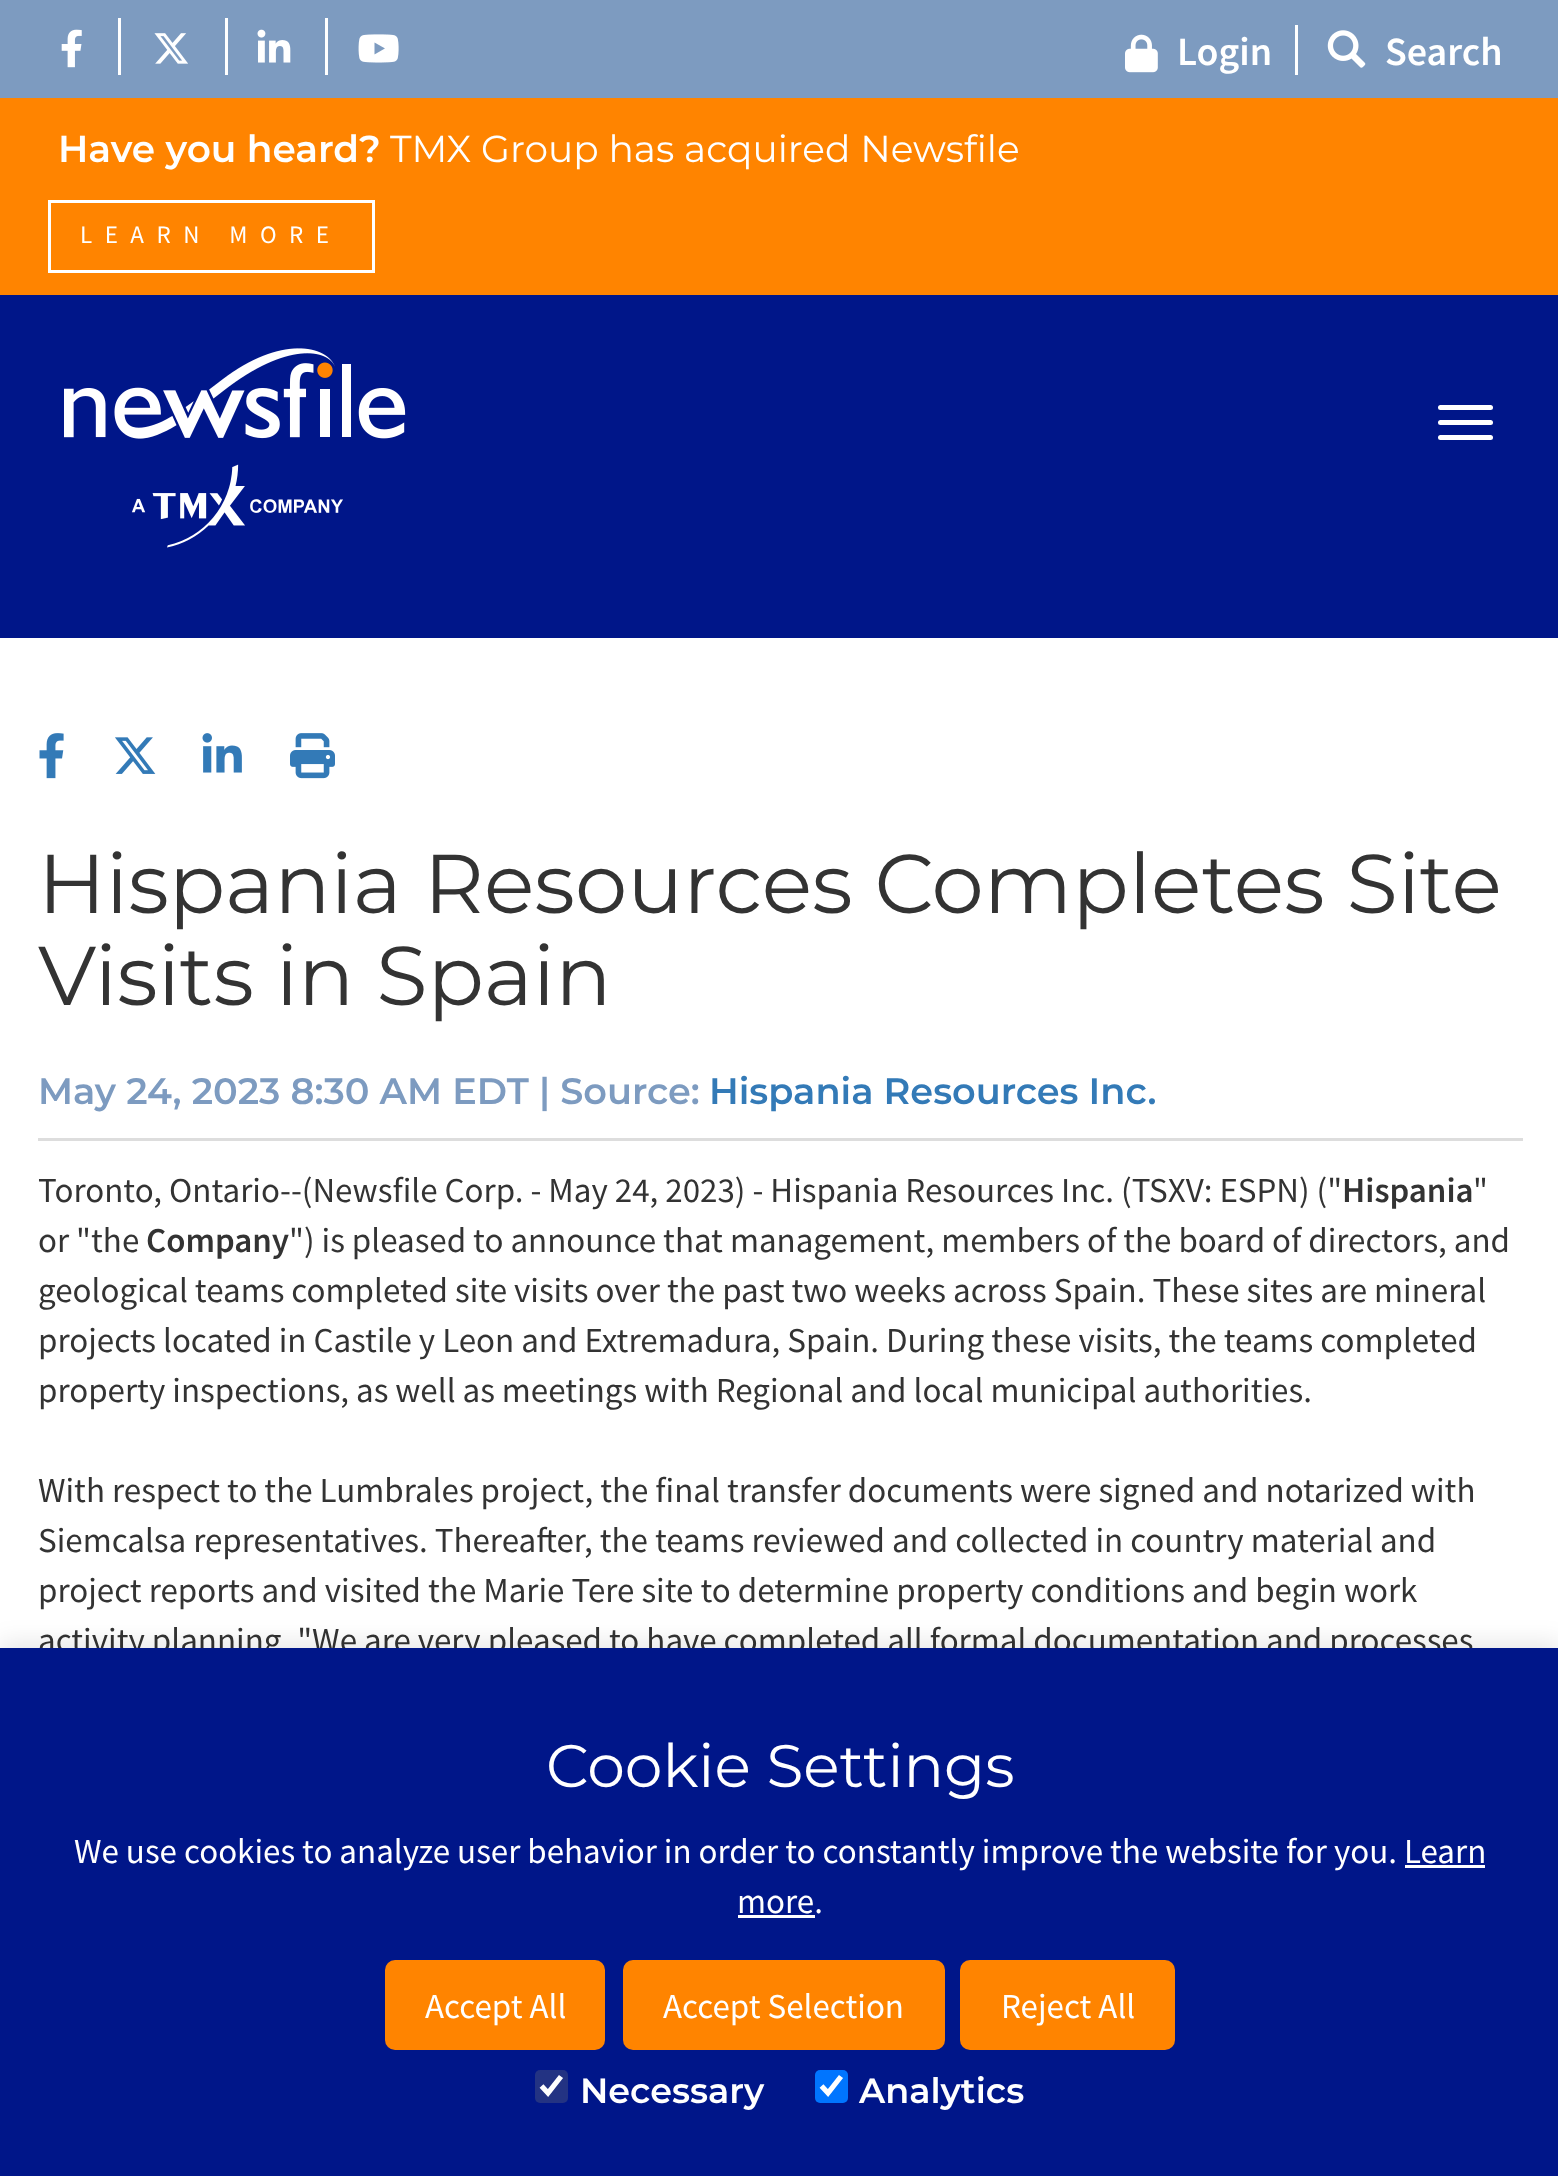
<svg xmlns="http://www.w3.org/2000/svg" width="1558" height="2176">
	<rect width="100%" height="100%" fill="#FFFFFF" />
	<rect x="0" y="0" width="1558" height="98" fill="#7D9BC0" />
	<rect x="118" y="18" width="3" height="57" fill="#FFFFFF" />
	<image x="61" y="29" width="21" height="39" href="assets/img1.png" />
	<rect x="225" y="18" width="3" height="57" fill="#FFFFFF" />
	<image x="154" y="33" width="34" height="31" href="assets/img2.png" />
	<rect x="325" y="18" width="3" height="57" fill="#FFFFFF" />
	<image x="257" y="29" width="34" height="34" href="assets/img3.png" />
	<image x="358" y="34" width="41" height="29" href="assets/img4.png" />
	<rect x="1295" y="25" width="3" height="50" fill="#FFFFFF" />
	<image x="1125" y="34" width="33" height="39" href="assets/img5.png" />
	<text x="1177" y="65" font-family="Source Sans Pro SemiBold" font-size="40" font-weight="600" fill="#FFFFFF">Login</text>
	<image x="1327" y="30" width="39" height="38" href="assets/img6.png" />
	<text x="1385" y="65" font-family="Source Sans Pro SemiBold" font-size="40" font-weight="600" fill="#FFFFFF">Search</text>
	<rect x="0" y="98" width="1558" height="197" fill="#FF8400" />
	<text x="58" y="162" font-family="Montserrat" font-size="37.5" font-weight="600" fill="#FFFFFF">Have you heard?</text>
	<text x="390" y="162" font-family="Montserrat" font-size="37.5" fill="#FFFFFF">TMX Group has acquired Newsfile</text>
	<rect x="49.5" y="201.5" width="324" height="70" fill="none" stroke="#FFFFFF" stroke-width="3" />
	<text x="80" y="243" font-family="Source Sans Pro" font-size="25" letter-spacing="12.5" fill="#FFFFFF">LEARN MORE</text>
	<rect x="0" y="295" width="1558" height="343" fill="#001689" />
	<image x="64" y="348" width="342" height="200" href="assets/img7.png" />
	<rect x="1438" y="405" width="55" height="5" rx="2.5" fill="#FFFFFF" />
	<rect x="1438" y="420" width="55" height="5" rx="2.5" fill="#FFFFFF" />
	<rect x="1438" y="435" width="55" height="5" rx="2.5" fill="#FFFFFF" />
	<image x="39" y="733" width="25" height="46" href="assets/img8.png" />
	<image x="115" y="737" width="41" height="37" href="assets/img9.png" />
	<image x="202" y="733" width="40" height="40" href="assets/img10.png" />
	<image x="290" y="733" width="45" height="46" href="assets/img11.png" />
	<g font-family="Montserrat" font-size="83.3" fill="#333333">
		<text x="38" y="913">Hispania Resources Completes Site</text>
		<text x="38" y="1005">Visits in Spain</text>
	</g>
	<rect x="38" y="1138" width="1485" height="3" fill="#DDDDDD" />
	<text x="38" y="1104" font-family="Montserrat" font-size="36.7" font-weight="600" fill="#7D9BC0">May 24, 2023 8:30 AM EDT | Source:</text>
	<text x="709" y="1104" font-family="Montserrat" font-size="36.7" font-weight="600" fill="#337AB7">Hispania Resources Inc.</text>
	<text x="38" y="1202" font-family="Source Sans Pro" font-size="35" fill="#333333">Toronto, Ontario--(Newsfile Corp. - May 24, 2023) - Hispania Resources Inc. (TSXV: ESPN) ("</text>
	<text x="1342" y="1202" font-family="Source Sans Pro SemiBold" font-size="35" font-weight="600" fill="#333333">Hispania</text>
	<g font-family="Source Sans Pro" font-size="35" fill="#333333">
		<text x="1473" y="1202">"</text>
		<text x="38" y="1252">or "the</text>
	</g>
	<text x="146" y="1252" font-family="Source Sans Pro SemiBold" font-size="35" font-weight="600" fill="#333333">Company</text>
	<g font-family="Source Sans Pro" font-size="35" fill="#333333">
		<text x="289" y="1252">") is pleased to announce that management, members of the board of directors, and</text>
		<text x="38" y="1302">geological teams completed site visits over the past two weeks across Spain. These sites are mineral</text>
		<text x="38" y="1352">projects located in Castile y Leon and Extremadura, Spain. During these visits, the teams completed</text>
		<text x="38" y="1402">property inspections, as well as meetings with Regional and local municipal authorities.</text>
		<text x="38" y="1502">With respect to the Lumbrales project, the final transfer documents were signed and notarized with</text>
		<text x="38" y="1552">Siemcalsa representatives. Thereafter, the teams reviewed and collected in country material and</text>
		<text x="38" y="1602">project reports and visited the Marie Tere site to determine property conditions and begin work</text>
		<text x="38" y="1652">activity planning. "We are very pleased to have completed all formal documentation and processes</text>
	</g>
	<rect x="0" y="1643" width="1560" height="530" fill="#000000" fill-opacity="0.1" filter="blur(12.5px)" />
	<rect x="0" y="1648" width="1558" height="528" fill="#001689" />
	<text x="546" y="1787" font-family="Montserrat" font-size="60" fill="#FFFFFF">Cookie Settings</text>
	<g font-family="Source Sans Pro" font-size="35" fill="#FFFFFF">
		<text x="74" y="1863">We use cookies to analyze user behavior in order to constantly improve the website for you. Learn</text>
		<text x="737" y="1913">more.</text>
	</g>
	<rect x="1405" y="1865" width="80" height="3" fill="#FFFFFF" />
	<rect x="738" y="1915" width="77" height="3" fill="#FFFFFF" />
	<rect x="385" y="1960" width="220" height="90" rx="10" fill="#FF8400" />
	<text x="425" y="2018" font-family="Source Sans Pro" font-size="35" fill="#FFFFFF">Accept All</text>
	<rect x="623" y="1960" width="322" height="90" rx="10" fill="#FF8400" />
	<text x="663" y="2018" font-family="Source Sans Pro" font-size="35" fill="#FFFFFF">Accept Selection</text>
	<rect x="960" y="1960" width="215" height="90" rx="10" fill="#FF8400" />
	<text x="1001" y="2018" font-family="Source Sans Pro" font-size="35" fill="#FFFFFF">Reject All</text>
	<rect x="535" y="2070" width="33" height="33" rx="5" fill="#233383" />
	<path d="M541.5 2086L548 2093L561 2076.5" fill="none" stroke="#FFFFFF" stroke-width="5.2" />
	<text x="580" y="2103" font-family="Montserrat" font-size="35" font-weight="600" fill="#FFFFFF">Necessary</text>
	<rect x="815" y="2070" width="33" height="33" rx="5" fill="#0075FF" />
	<path d="M821.5 2086L828 2093L841 2076.5" fill="none" stroke="#FFFFFF" stroke-width="5.2" />
	<text x="859" y="2103" font-family="Montserrat" font-size="35" font-weight="600" fill="#FFFFFF">Analytics</text>
</svg>
